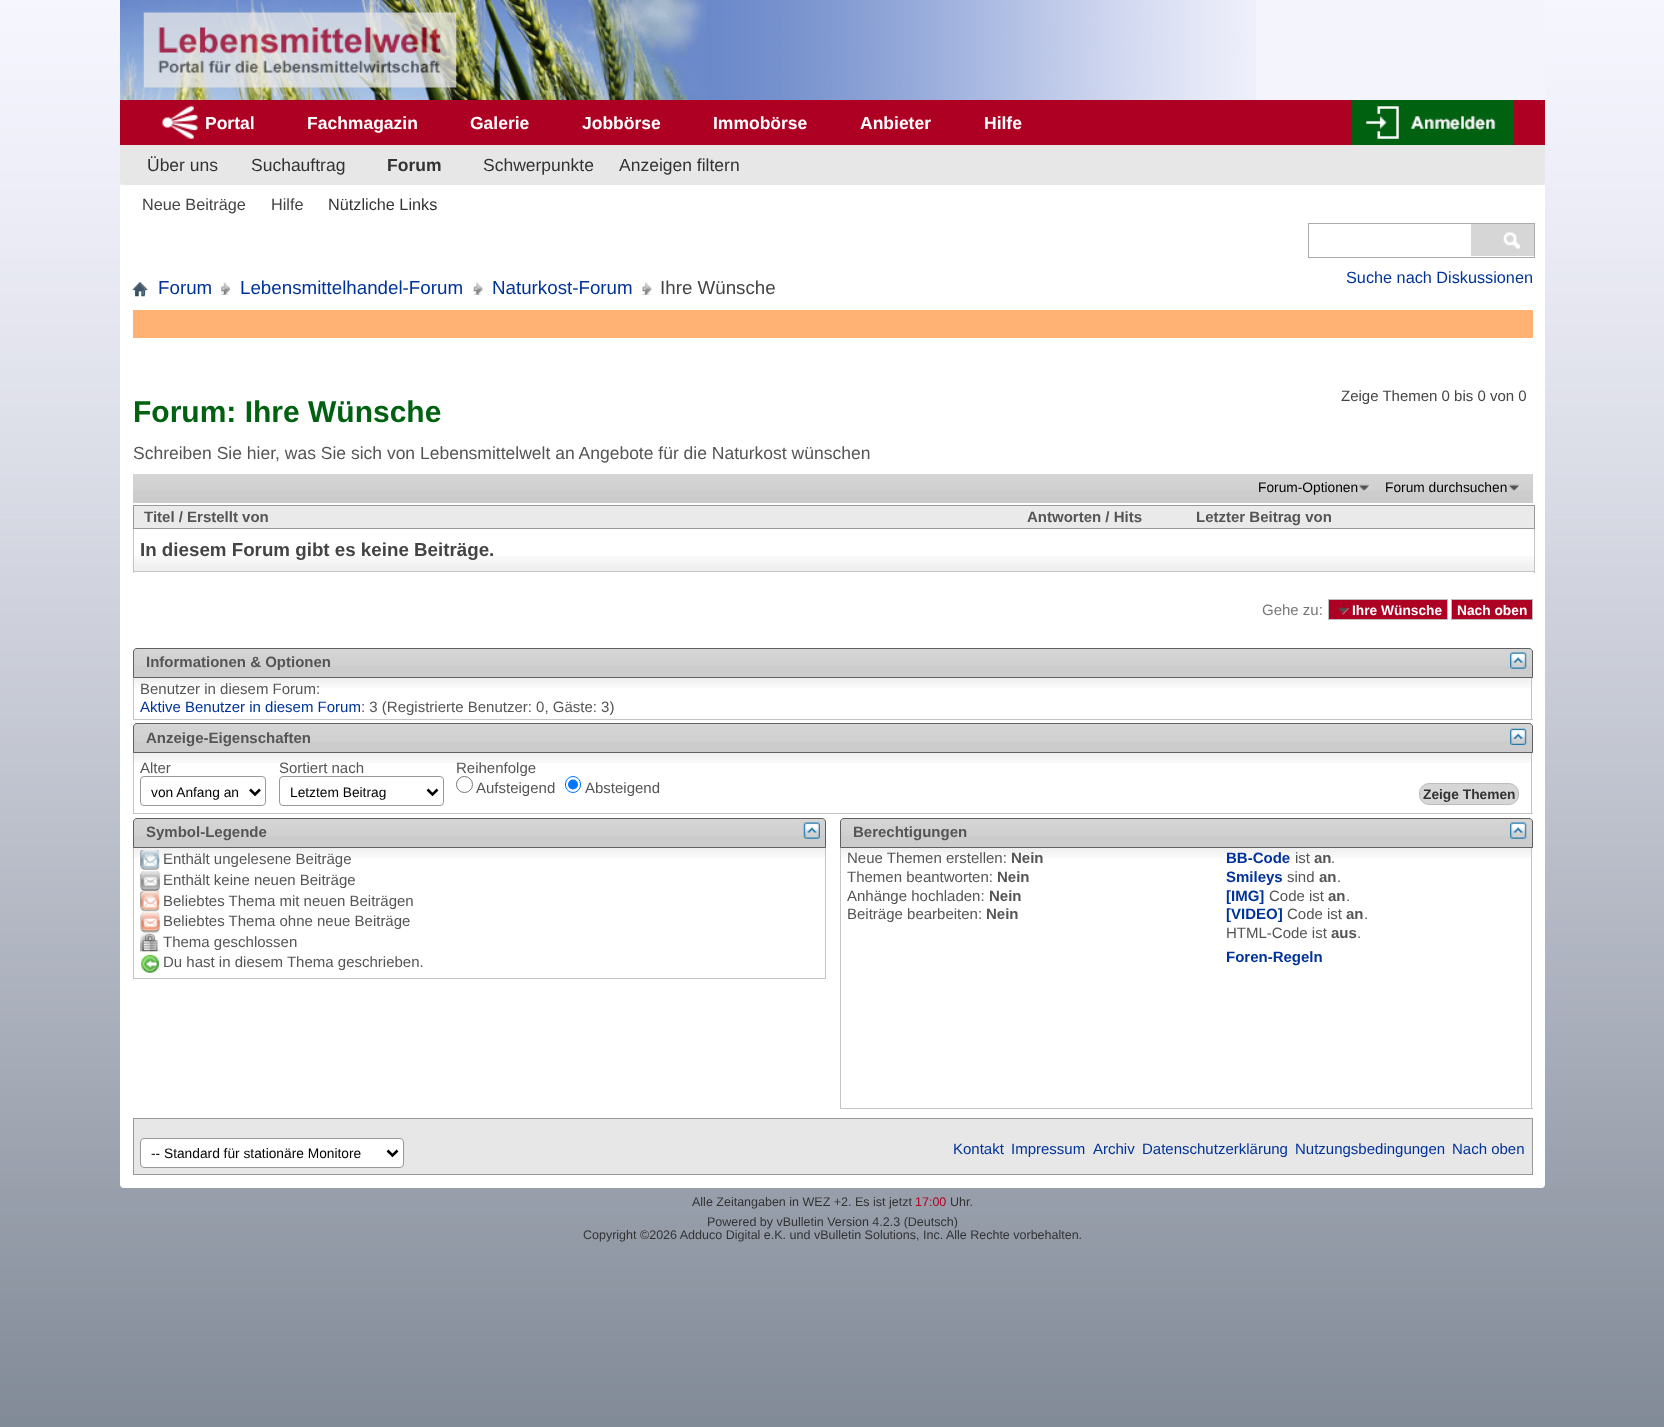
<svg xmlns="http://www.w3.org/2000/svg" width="1664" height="1427">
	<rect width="100%" height="100%" fill="#FFFFFF" />
	<image x="0" y="0" width="1664" height="1427" href="assets/img1.png" />
	<path d="M120 0H1545V181C1545 183 1543 185 1541 185H124C122 185 120 183 120 181Z" fill="#F4F4FD" />
	<image x="120" y="0" width="1136" height="100" href="assets/img2.png" />
	<image x="143" y="12" width="314" height="76" href="assets/img3.png" />
	<rect x="120" y="100" width="1425" height="45" fill="#AD0022" />
	<image x="162" y="106" width="36" height="33" href="assets/img4.png" />
	<g font-family="Liberation Sans" font-size="17.5" font-weight="700" fill="#FFFFFF">
		<text x="205" y="129">Portal</text>
		<text x="307" y="129">Fachmagazin</text>
		<text x="470" y="129">Galerie</text>
		<text x="582" y="129">Jobbörse</text>
		<text x="713" y="129">Immobörse</text>
		<text x="860" y="129">Anbieter</text>
		<text x="984" y="129">Hilfe</text>
	</g>
	<rect x="1351" y="100" width="163" height="45" fill="#006111" />
	<image x="1366" y="106" width="130" height="33" href="assets/img5.png" />
	<path d="M120 145H1545V181C1545 183 1543 185 1541 185H124C122 185 120 183 120 181Z" fill="#E7E7E7" />
	<text x="147" y="171" font-family="Liberation Sans" font-size="17.5" fill="#333333">Über uns</text>
	<text x="387" y="171" font-family="Liberation Sans" font-size="17.5" font-weight="700" fill="#333333">Forum</text>
	<rect x="120" y="185" width="1425" height="1003" rx="4" fill="#FFFFFF" />
	<path d="M120 185H1545V221C1545 223 1543 225 1541 225H124C122 225 120 223 120 221Z" fill="#FFFFFF" />
	<g font-family="Liberation Sans" font-size="16.25" fill="#444444">
		<text x="142" y="210">Neue Beiträge</text>
		<text x="271" y="210">Hilfe</text>
	</g>
	<text x="328" y="210" font-family="Liberation Sans" font-size="16.25" fill="#333333">Nützliche Links</text>
	<g font-family="Liberation Sans" font-size="17.5" fill="#333333">
		<text x="251" y="171">Suchauftrag</text>
		<text x="483" y="171">Schwerpunkte</text>
		<text x="619" y="171">Anzeigen filtern</text>
	</g>
	<rect x="1308.5" y="223.5" width="226" height="34" fill="none" stroke="#ABABAB" />
	<rect x="1471" y="224" width="63" height="32" fill="#D6D6D6" />
	<image x="1503" y="232" width="18" height="17" href="assets/img6.png" />
	<text x="1346" y="283" font-family="Liberation Sans" font-size="16.25" fill="#003399">Suche nach Diskussionen</text>
	<image x="132" y="282" width="16" height="15" href="assets/img7.png" />
	<image x="221" y="282" width="9" height="13" href="assets/img8.png" />
	<text x="158" y="294" font-family="Liberation Sans" font-size="18.75" fill="#003399">Forum</text>
	<image x="473" y="282" width="10" height="13" href="assets/img9.png" />
	<text x="240" y="294" font-family="Liberation Sans" font-size="18.75" fill="#003399">Lebensmittelhandel-Forum</text>
	<image x="642" y="282" width="10" height="13" href="assets/img10.png" />
	<text x="492" y="294" font-family="Liberation Sans" font-size="18.75" fill="#003399">Naturkost-Forum</text>
	<text x="660" y="294" font-family="Liberation Sans" font-size="18.75" fill="#444444">Ihre Wünsche</text>
	<rect x="133" y="310" width="1400" height="28" fill="#FFB273" />
	<text x="1341" y="401" font-family="Liberation Sans" font-size="15" fill="#444444">Zeige Themen 0 bis 0 von 0</text>
	<text x="133" y="422" font-family="Liberation Sans" font-size="30" font-weight="700" fill="#006111">Forum: Ihre Wünsche</text>
	<text x="133" y="459" font-family="Liberation Sans" font-size="17.5" fill="#555555">Schreiben Sie hier, was Sie sich von Lebensmittelwelt an Angebote für die Naturkost wünschen</text>
	<rect x="133" y="474" width="1400" height="29" fill="#CCCCCC" />
	<image x="133" y="474" width="1400" height="17" href="assets/img11.png" />
	<image x="1358" y="484" width="12" height="8" href="assets/img12.png" />
	<text x="1258" y="492" font-family="Liberation Sans" font-size="13.75" fill="#000000">Forum-Optionen</text>
	<image x="1508" y="484" width="12" height="8" href="assets/img13.png" />
	<text x="1385" y="492" font-family="Liberation Sans" font-size="13.75" fill="#000000">Forum durchsuchen</text>
	<rect x="133.5" y="505.5" width="1401" height="23" fill="#EAEAEA" stroke="#999999" />
	<g font-family="Liberation Sans" font-size="15" font-weight="700" fill="#555555">
		<text x="144" y="522">Titel / Erstellt von</text>
		<text x="1027" y="522">Antworten / Hits</text>
		<text x="1196" y="522">Letzter Beitrag von</text>
	</g>
	<image x="132" y="556" width="1402" height="15" href="assets/img14.png" />
	<rect x="1534" y="529" width="1" height="44" fill="#C4C4C4" />
	<rect x="133" y="571" width="1402" height="1" fill="#C4C4C4" />
	<rect x="133" y="529" width="1" height="44" fill="#C4C4C4" />
	<text x="140" y="556" font-family="Liberation Sans" font-size="18.75" font-weight="700" fill="#444444">In diesem Forum gibt es keine Beiträge.</text>
	<text x="1262" y="615" font-family="Liberation Sans" font-size="15" fill="#777777">Gehe zu:</text>
	<rect x="1328.5" y="599.5" width="119" height="20" fill="#AD0022" stroke="#BCBCBC" />
	<image x="1337" y="607" width="12" height="8" href="assets/img15.png" />
	<text x="1352" y="615" font-family="Liberation Sans" font-size="13.75" font-weight="700" fill="#FFFFFF">Ihre Wünsche</text>
	<rect x="1451.5" y="599.5" width="81" height="20" fill="#AD0022" stroke="#BCBCBC" />
	<text x="1457" y="615" font-family="Liberation Sans" font-size="13.75" font-weight="700" fill="#FFFFFF">Nach oben</text>
	<image x="132" y="677" width="1401" height="11" href="assets/img18.png" />
	<path d="M137 648H1529C1531 648 1533 650 1533 652V678H133V652C133 650 135 648 137 648Z" fill="#CCCCCC" />
	<image x="133" y="649" width="1399" height="17" href="assets/img16.png" />
	<path d="M137 648.5H1529C1531 648.5 1532.5 650 1532.5 652V677.5H133.5V652C133.5 650 135 648.5 137 648.5Z" fill="none" stroke="#606060" />
	<text x="146" y="667" font-family="Liberation Sans" font-size="15" font-weight="700" fill="#555555">Informationen &amp; Optionen</text>
	<image x="1510" y="652" width="17" height="17" href="assets/img17.png" />
	<rect x="1531" y="678" width="1" height="42" fill="#C4C4C4" />
	<rect x="133" y="719" width="1400" height="1" fill="#C4C4C4" />
	<rect x="133" y="678" width="1" height="42" fill="#C4C4C4" />
	<text x="140" y="694" font-family="Liberation Sans" font-size="15" fill="#555555">Benutzer in diesem Forum:</text>
	<text x="140" y="712" font-family="Liberation Sans" font-size="15" fill="#003399">Aktive Benutzer in diesem Forum</text>
	<text x="361" y="712" font-family="Liberation Sans" font-size="15" fill="#555555">: 3 (Registrierte Benutzer: 0, Gäste: 3)</text>
	<image x="132" y="752" width="1401" height="11" href="assets/img18.png" />
	<path d="M137 723H1529C1531 723 1533 725 1533 727V753H133V727C133 725 135 723 137 723Z" fill="#CCCCCC" />
	<image x="133" y="724" width="1399" height="17" href="assets/img16.png" />
	<path d="M137 723.5H1529C1531 723.5 1532.5 725 1532.5 727V752.5H133.5V727C133.5 725 135 723.5 137 723.5Z" fill="none" stroke="#606060" />
	<text x="146" y="743" font-family="Liberation Sans" font-size="15" font-weight="700" fill="#555555">Anzeige-Eigenschaften</text>
	<image x="1510" y="728" width="17" height="17" href="assets/img19.png" />
	<rect x="1531" y="753" width="1" height="61" fill="#C4C4C4" />
	<rect x="133" y="813" width="1400" height="1" fill="#C4C4C4" />
	<rect x="133" y="753" width="1" height="61" fill="#C4C4C4" />
	<text x="140" y="773" font-family="Liberation Sans" font-size="15" fill="#555555">Alter</text>
	<rect x="140.5" y="776.5" width="125" height="29" rx="3.5" fill="none" stroke="#999999" />
	<path d="M250 789.5L255 794.5L260 789.5" fill="none" stroke="#000000" stroke-width="2.5" />
	<text x="151" y="797" font-family="Liberation Sans" font-size="13.75" fill="#000000">von Anfang an</text>
	<text x="279" y="773" font-family="Liberation Sans" font-size="15" fill="#555555">Sortiert nach</text>
	<rect x="279.5" y="776.5" width="164" height="29" rx="3.5" fill="none" stroke="#999999" />
	<path d="M427.5 789.5L432.5 794.5L437.5 789.5" fill="none" stroke="#000000" stroke-width="2.5" />
	<text x="290" y="797" font-family="Liberation Sans" font-size="13.75" fill="#000000">Letztem Beitrag</text>
	<text x="456" y="773" font-family="Liberation Sans" font-size="15" fill="#555555">Reihenfolge</text>
	<circle cx="464.5" cy="784.5" r="8" fill="none" stroke="#767676" />
	<text x="476" y="793" font-family="Liberation Sans" font-size="15" fill="#555555">Aufsteigend</text>
	<rect x="565.5" y="776.5" width="15" height="16" rx="7.5" fill="none" stroke="#0075FF" />
	<circle cx="573" cy="784.5" r="5" fill="#0075FF" />
	<text x="585" y="793" font-family="Liberation Sans" font-size="15" fill="#555555">Absteigend</text>
	<rect x="1419.5" y="783.5" width="99" height="21" rx="9.5" fill="#D6D6D6" stroke="#BCBCBC" />
	<text x="1423" y="799" font-family="Liberation Sans" font-size="13.75" font-weight="700" fill="#333333">Zeige Themen</text>
	<image x="132" y="847" width="693" height="11" href="assets/img22.png" />
	<path d="M137 818H822C824 818 826 820 826 822V848H133V822C133 820 135 818 137 818Z" fill="#CCCCCC" />
	<image x="133" y="819" width="693" height="17" href="assets/img20.png" />
	<path d="M137 818.5H822C824 818.5 825.5 820 825.5 822V847.5H133.5V822C133.5 820 135 818.5 137 818.5Z" fill="none" stroke="#606060" />
	<text x="146" y="837" font-family="Liberation Sans" font-size="15" font-weight="700" fill="#555555">Symbol-Legende</text>
	<image x="803" y="822" width="17" height="17" href="assets/img21.png" />
	<rect x="825" y="848" width="1" height="131" fill="#C4C4C4" />
	<rect x="133" y="978" width="693" height="1" fill="#C4C4C4" />
	<rect x="133" y="848" width="1" height="131" fill="#C4C4C4" />
	<image x="140" y="850" width="20" height="20" href="assets/img23.png" />
	<text x="163" y="864" font-family="Liberation Sans" font-size="15" fill="#555555">Enthält ungelesene Beiträge</text>
	<image x="140" y="871" width="20" height="21" href="assets/img24.png" />
	<text x="163" y="885" font-family="Liberation Sans" font-size="15" fill="#555555">Enthält keine neuen Beiträge</text>
	<image x="140" y="891" width="20" height="21" href="assets/img25.png" />
	<text x="163" y="906" font-family="Liberation Sans" font-size="15" fill="#555555">Beliebtes Thema mit neuen Beiträgen</text>
	<image x="140" y="912" width="20" height="21" href="assets/img26.png" />
	<text x="163" y="926" font-family="Liberation Sans" font-size="15" fill="#555555">Beliebtes Thema ohne neue Beiträge</text>
	<image x="140" y="933" width="20" height="19" href="assets/img27.png" />
	<text x="163" y="947" font-family="Liberation Sans" font-size="15" fill="#555555">Thema geschlossen</text>
	<image x="141" y="954" width="18" height="19" href="assets/img28.png" />
	<text x="163" y="967" font-family="Liberation Sans" font-size="15" fill="#555555">Du hast in diesem Thema geschrieben.</text>
	<path d="M844 818H1529C1531 818 1533 820 1533 822V848H840V822C840 820 842 818 844 818Z" fill="#CCCCCC" />
	<image x="840" y="819" width="692" height="17" href="assets/img29.png" />
	<path d="M844 818.5H1529C1531 818.5 1532.5 820 1532.5 822V847.5H840.5V822C840.5 820 842 818.5 844 818.5Z" fill="none" stroke="#606060" />
	<text x="853" y="837" font-family="Liberation Sans" font-size="15" font-weight="700" fill="#555555">Berechtigungen</text>
	<image x="1510" y="822" width="17" height="17" href="assets/img17.png" />
	<image x="841" y="848" width="692" height="10" href="assets/img30.png" />
	<rect x="1531" y="848" width="1" height="261" fill="#C4C4C4" />
	<rect x="840" y="1108" width="693" height="1" fill="#C4C4C4" />
	<rect x="840" y="848" width="1" height="261" fill="#C4C4C4" />
	<text x="847" y="863" font-family="Liberation Sans" font-size="15" fill="#555555">Neue Themen erstellen:</text>
	<text x="1011" y="863" font-family="Liberation Sans" font-size="15" font-weight="700" fill="#555555">Nein</text>
	<text x="847" y="882" font-family="Liberation Sans" font-size="15" fill="#555555">Themen beantworten:</text>
	<text x="997" y="882" font-family="Liberation Sans" font-size="15" font-weight="700" fill="#555555">Nein</text>
	<text x="847" y="901" font-family="Liberation Sans" font-size="15" fill="#555555">Anhänge hochladen:</text>
	<text x="989" y="901" font-family="Liberation Sans" font-size="15" font-weight="700" fill="#555555">Nein</text>
	<text x="847" y="919" font-family="Liberation Sans" font-size="15" fill="#555555">Beiträge bearbeiten:</text>
	<text x="986" y="919" font-family="Liberation Sans" font-size="15" font-weight="700" fill="#555555">Nein</text>
	<text x="1226" y="863" font-family="Liberation Sans" font-size="15" font-weight="700" fill="#003399">BB-Code</text>
	<text x="1295" y="863" font-family="Liberation Sans" font-size="15" fill="#555555">ist</text>
	<text x="1314" y="863" font-family="Liberation Sans" font-size="15" font-weight="700" fill="#555555">an</text>
	<text x="1331" y="863" font-family="Liberation Sans" font-size="15" fill="#555555">.</text>
	<text x="1226" y="882" font-family="Liberation Sans" font-size="15" font-weight="700" fill="#003399">Smileys</text>
	<text x="1287" y="882" font-family="Liberation Sans" font-size="15" fill="#555555">sind</text>
	<text x="1319" y="882" font-family="Liberation Sans" font-size="15" font-weight="700" fill="#555555">an</text>
	<text x="1337" y="882" font-family="Liberation Sans" font-size="15" fill="#555555">.</text>
	<text x="1226" y="901" font-family="Liberation Sans" font-size="15" font-weight="700" fill="#003399">[IMG]</text>
	<text x="1269" y="901" font-family="Liberation Sans" font-size="15" fill="#555555">Code ist</text>
	<text x="1328" y="901" font-family="Liberation Sans" font-size="15" font-weight="700" fill="#555555">an</text>
	<text x="1346" y="901" font-family="Liberation Sans" font-size="15" fill="#555555">.</text>
	<text x="1226" y="919" font-family="Liberation Sans" font-size="15" font-weight="700" fill="#003399">[VIDEO]</text>
	<text x="1287" y="919" font-family="Liberation Sans" font-size="15" fill="#555555">Code ist</text>
	<text x="1346" y="919" font-family="Liberation Sans" font-size="15" font-weight="700" fill="#555555">an</text>
	<g font-family="Liberation Sans" font-size="15" fill="#555555">
		<text x="1364" y="919">.</text>
		<text x="1226" y="938">HTML-Code ist</text>
	</g>
	<text x="1331" y="938" font-family="Liberation Sans" font-size="15" font-weight="700" fill="#555555">aus</text>
	<text x="1357" y="938" font-family="Liberation Sans" font-size="15" fill="#555555">.</text>
	<text x="1226" y="962" font-family="Liberation Sans" font-size="15" font-weight="700" fill="#003399">Foren-Regeln</text>
	<rect x="133.5" y="1118.5" width="1399" height="56" fill="#E7E7E7" stroke="#999999" />
	<rect x="140.5" y="1138.5" width="263" height="29" rx="3.5" fill="#FFFFFF" stroke="#999999" />
	<path d="M387.5 1150.5L392.5 1155.5L397.5 1150.5" fill="none" stroke="#000000" stroke-width="2.5" />
	<text x="151" y="1158" font-family="Liberation Sans" font-size="13.75" fill="#000000">-- Standard für stationäre Monitore</text>
	<g font-family="Liberation Sans" font-size="15" fill="#003399">
		<text x="953" y="1154">Kontakt</text>
		<text x="1011" y="1154">Impressum</text>
		<text x="1093" y="1154">Archiv</text>
		<text x="1142" y="1154">Datenschutzerklärung</text>
		<text x="1295" y="1154">Nutzungsbedingungen</text>
		<text x="1452" y="1154">Nach oben</text>
	</g>
	<text x="692" y="1206" font-family="Liberation Sans" font-size="12.5" fill="#333333">Alle Zeitangaben in WEZ +2. Es ist jetzt</text>
	<text x="915" y="1206" font-family="Liberation Sans" font-size="12.5" fill="#AD0022">17:00</text>
	<g font-family="Liberation Sans" font-size="12.5" fill="#333333">
		<text x="950" y="1206">Uhr.</text>
		<text x="707" y="1226">Powered by vBulletin Version 4.2.3 (Deutsch)</text>
		<text x="583" y="1239">Copyright ©2026 Adduco Digital e.K. und vBulletin Solutions, Inc. Alle Rechte vorbehalten.</text>
	</g>
</svg>
